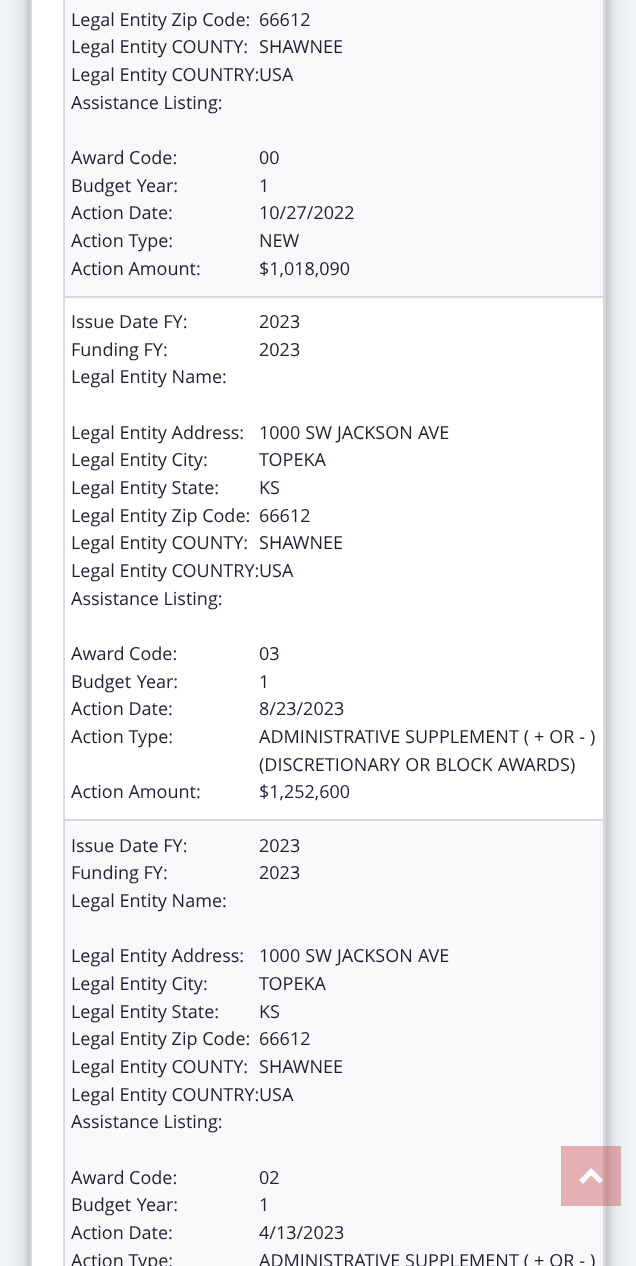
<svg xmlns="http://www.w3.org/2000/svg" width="636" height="1266">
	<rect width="100%" height="100%" fill="#F3F6F9" />
	<rect x="30" y="-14" width="576" height="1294" fill="#000000" fill-opacity="0.23" filter="blur(4.5px)" />
	<rect x="30" y="-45" width="576" height="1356" fill="#000000" fill-opacity="0.19" filter="blur(15px)" />
	<path d="M606-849V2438L604 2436V-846Z" fill="#CFD8DC" />
	<path d="M30 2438V-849L32-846V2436Z" fill="#CFD8DC" />
	<rect x="65" y="0" width="538" height="296" fill="#F7F9FB" />
	<rect x="32" y="0" width="31" height="297" fill="#FFFFFF" />
	<rect x="32" y="297" width="571" height="524" fill="#FFFFFF" />
	<rect x="63" y="0" width="2" height="1266" fill="#D9DAE0" />
	<rect x="603" y="0" width="2" height="297" fill="#D9DAE0" />
	<rect x="65" y="296" width="540" height="2" fill="#D9DAE0" />
	<g font-family="Open Sans" font-size="18" fill="#201F35">
		<text x="71" y="26">Legal Entity Zip Code:</text>
		<text x="259" y="26">66612</text>
		<text x="71" y="53">Legal Entity COUNTY:</text>
		<text x="259" y="53">SHAWNEE</text>
		<text x="71" y="81">Legal Entity COUNTRY:</text>
		<text x="259" y="81">USA</text>
		<text x="71" y="109">Assistance Listing:</text>
		<text x="71" y="164">Award Code:</text>
		<text x="259" y="164">00</text>
		<text x="71" y="192" word-spacing="1">Budget Year:</text>
		<text x="259" y="192">1</text>
		<text x="71" y="219">Action Date:</text>
		<text x="259" y="219">10/27/2022</text>
		<text x="71" y="247">Action Type:</text>
		<text x="259" y="247">NEW</text>
		<text x="71" y="275">Action Amount:</text>
		<text x="259" y="275">$1,018,090</text>
	</g>
	<rect x="603" y="297" width="2" height="969" fill="#D9DAE0" />
	<rect x="65" y="819" width="540" height="2" fill="#D9DAE0" />
	<g font-family="Open Sans" font-size="18" fill="#201F35">
		<text x="71" y="328">Issue Date FY:</text>
		<text x="259" y="328">2023</text>
		<text x="71" y="356">Funding FY:</text>
		<text x="259" y="356">2023</text>
		<text x="71" y="383">Legal Entity Name:</text>
		<text x="71" y="439">Legal Entity Address:</text>
		<text x="259" y="439" word-spacing="0.5">1000 SW JACKSON AVE</text>
		<text x="71" y="466">Legal Entity City:</text>
		<text x="259" y="466">TOPEKA</text>
		<text x="71" y="494">Legal Entity State:</text>
		<text x="259" y="494">KS</text>
		<text x="71" y="522">Legal Entity Zip Code:</text>
		<text x="259" y="522">66612</text>
		<text x="71" y="549">Legal Entity COUNTY:</text>
		<text x="259" y="549">SHAWNEE</text>
		<text x="71" y="577">Legal Entity COUNTRY:</text>
		<text x="259" y="577">USA</text>
		<text x="71" y="605">Assistance Listing:</text>
		<text x="71" y="660">Award Code:</text>
		<text x="259" y="660">03</text>
		<text x="71" y="688" word-spacing="1">Budget Year:</text>
		<text x="259" y="688">1</text>
		<text x="71" y="715">Action Date:</text>
		<text x="259" y="715">8/23/2023</text>
		<text x="71" y="743">Action Type:</text>
		<text x="259" y="743" word-spacing="0.25">ADMINISTRATIVE SUPPLEMENT ( + OR - )</text>
		<text x="259" y="771" word-spacing="0.5">(DISCRETIONARY OR BLOCK AWARDS)</text>
		<text x="71" y="798">Action Amount:</text>
		<text x="259" y="798">$1,252,600</text>
	</g>
	<rect x="65" y="821" width="538" height="445" fill="#F7F9FB" />
	<rect x="32" y="821" width="31" height="445" fill="#FFFFFF" />
	<g font-family="Open Sans" font-size="18" fill="#201F35">
		<text x="71" y="852">Issue Date FY:</text>
		<text x="259" y="852">2023</text>
		<text x="71" y="879">Funding FY:</text>
		<text x="259" y="879">2023</text>
		<text x="71" y="907">Legal Entity Name:</text>
		<text x="71" y="962">Legal Entity Address:</text>
		<text x="259" y="962" word-spacing="0.5">1000 SW JACKSON AVE</text>
		<text x="71" y="990">Legal Entity City:</text>
		<text x="259" y="990">TOPEKA</text>
		<text x="71" y="1018">Legal Entity State:</text>
		<text x="259" y="1018">KS</text>
		<text x="71" y="1045">Legal Entity Zip Code:</text>
		<text x="259" y="1045">66612</text>
		<text x="71" y="1073">Legal Entity COUNTY:</text>
		<text x="259" y="1073">SHAWNEE</text>
		<text x="71" y="1101">Legal Entity COUNTRY:</text>
		<text x="259" y="1101">USA</text>
		<text x="71" y="1128">Assistance Listing:</text>
		<text x="71" y="1184">Award Code:</text>
		<text x="259" y="1184">02</text>
		<text x="71" y="1211" word-spacing="1">Budget Year:</text>
		<text x="259" y="1211">1</text>
		<text x="71" y="1239">Action Date:</text>
		<text x="259" y="1239">4/13/2023</text>
		<text x="71" y="1267">Action Type:</text>
		<text x="259" y="1267" word-spacing="0.25">ADMINISTRATIVE SUPPLEMENT ( + OR - )</text>
	</g>
	<rect x="561" y="1146" width="60" height="60" fill="#C94445" fill-opacity="0.4" />
	<path d="M591 1168L603 1180L599.5 1183.5L591 1175.5L583 1184L579 1180Z" fill="#FBFCFD" />
</svg>
